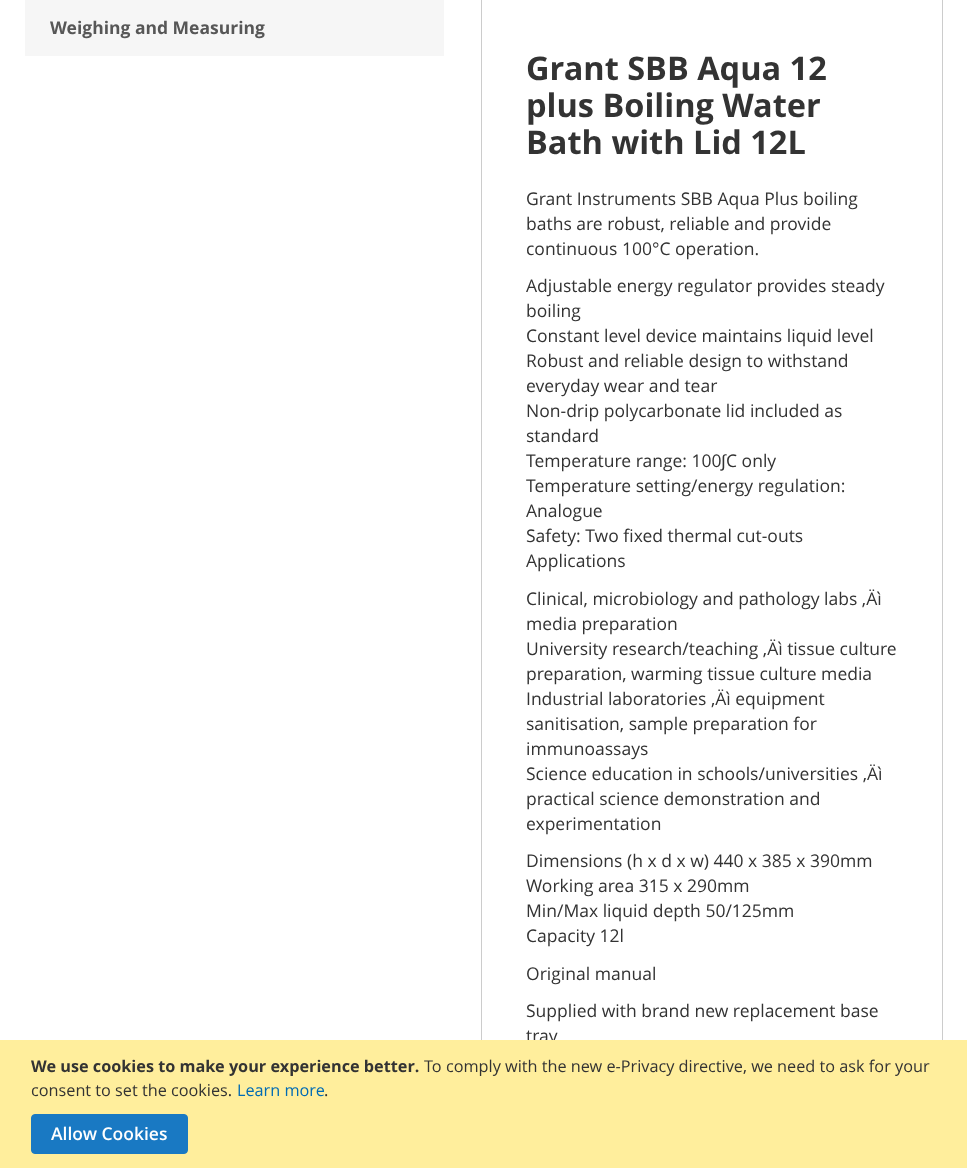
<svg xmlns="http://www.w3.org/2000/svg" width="967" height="1168">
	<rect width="100%" height="100%" fill="#FFFFFF" />
	<rect x="25" y="0" width="419" height="56" fill="#F6F6F6" />
	<text x="50" y="34" font-family="Open Sans" font-size="17.5" font-weight="700" fill="#575757">Weighing and Measuring</text>
	<rect x="481.5" y="-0.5" width="461" height="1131" fill="none" stroke="#CCCCCC" />
	<g font-family="Open Sans" font-size="32.5" font-weight="700" fill="#333333">
		<text x="526" y="80">Grant SBB Aqua 12</text>
		<text x="526" y="117">plus Boiling Water</text>
		<text x="526" y="154">Bath with Lid 12L</text>
	</g>
	<g font-family="Open Sans" font-size="17.5" fill="#333333">
		<text x="526" y="205">Grant Instruments SBB Aqua Plus boiling</text>
		<text x="526" y="230">baths are robust, reliable and provide</text>
		<text x="526" y="255">continuous 100°C operation.</text>
		<text x="526" y="292">Adjustable energy regulator provides steady</text>
		<text x="526" y="317">boiling</text>
		<text x="526" y="342">Constant level device maintains liquid level</text>
		<text x="526" y="367">Robust and reliable design to withstand</text>
		<text x="526" y="392">everyday wear and tear</text>
		<text x="526" y="417">Non-drip polycarbonate lid included as</text>
		<text x="526" y="442">standard</text>
		<text x="526" y="467">Temperature range: 100</text>
	</g>
	<text x="721" y="467" font-family="Liberation Sans" font-size="17.5" fill="#333333">∫</text>
	<g font-family="Open Sans" font-size="17.5" fill="#333333">
		<text x="726" y="467">C only</text>
		<text x="526" y="492">Temperature setting/energy regulation:</text>
		<text x="526" y="517">Analogue</text>
		<text x="526" y="542">Safety: Two fixed thermal cut-outs</text>
		<text x="526" y="567">Applications</text>
		<text x="526" y="605">Clinical, microbiology and pathology labs ‚Äì</text>
		<text x="526" y="630">media preparation</text>
		<text x="526" y="655">University research/teaching ‚Äì tissue culture</text>
		<text x="526" y="680">preparation, warming tissue culture media</text>
		<text x="526" y="705">Industrial laboratories ‚Äì equipment</text>
		<text x="526" y="730">sanitisation, sample preparation for</text>
		<text x="526" y="755">immunoassays</text>
		<text x="526" y="780">Science education in schools/universities ‚Äì</text>
		<text x="526" y="805">practical science demonstration and</text>
		<text x="526" y="830">experimentation</text>
		<text x="526" y="867">Dimensions (h x d x w) 440 x 385 x 390mm</text>
		<text x="526" y="892">Working area 315 x 290mm</text>
		<text x="526" y="917">Min/Max liquid depth 50/125mm</text>
		<text x="526" y="942">Capacity 12l</text>
		<text x="526" y="980">Original manual</text>
		<text x="526" y="1017">Supplied with brand new replacement base</text>
		<text x="526" y="1042">tray</text>
	</g>
	<rect x="0" y="1040" width="967" height="128" fill="#FFEE9C" />
	<text x="31" y="1072" font-family="Open Sans" font-size="16.25" font-weight="700" fill="#333333">We use cookies to make your experience better.</text>
	<g font-family="Open Sans" font-size="16.25" fill="#333333">
		<text x="424" y="1072">To comply with the new e-Privacy directive, we need to ask for your</text>
		<text x="31" y="1096">consent to set the cookies.</text>
	</g>
	<text x="237" y="1096" font-family="Open Sans" font-size="16.25" fill="#006BB4">Learn more</text>
	<text x="324" y="1096" font-family="Open Sans" font-size="16.25" fill="#333333">.</text>
	<rect x="31.5" y="1114.5" width="156" height="39" rx="3.5" fill="#1979C3" stroke="#1979C3" />
	<text x="51" y="1140" font-family="Open Sans" font-size="17.5" font-weight="600" fill="#FFFFFF">Allow Cookies</text>
</svg>
